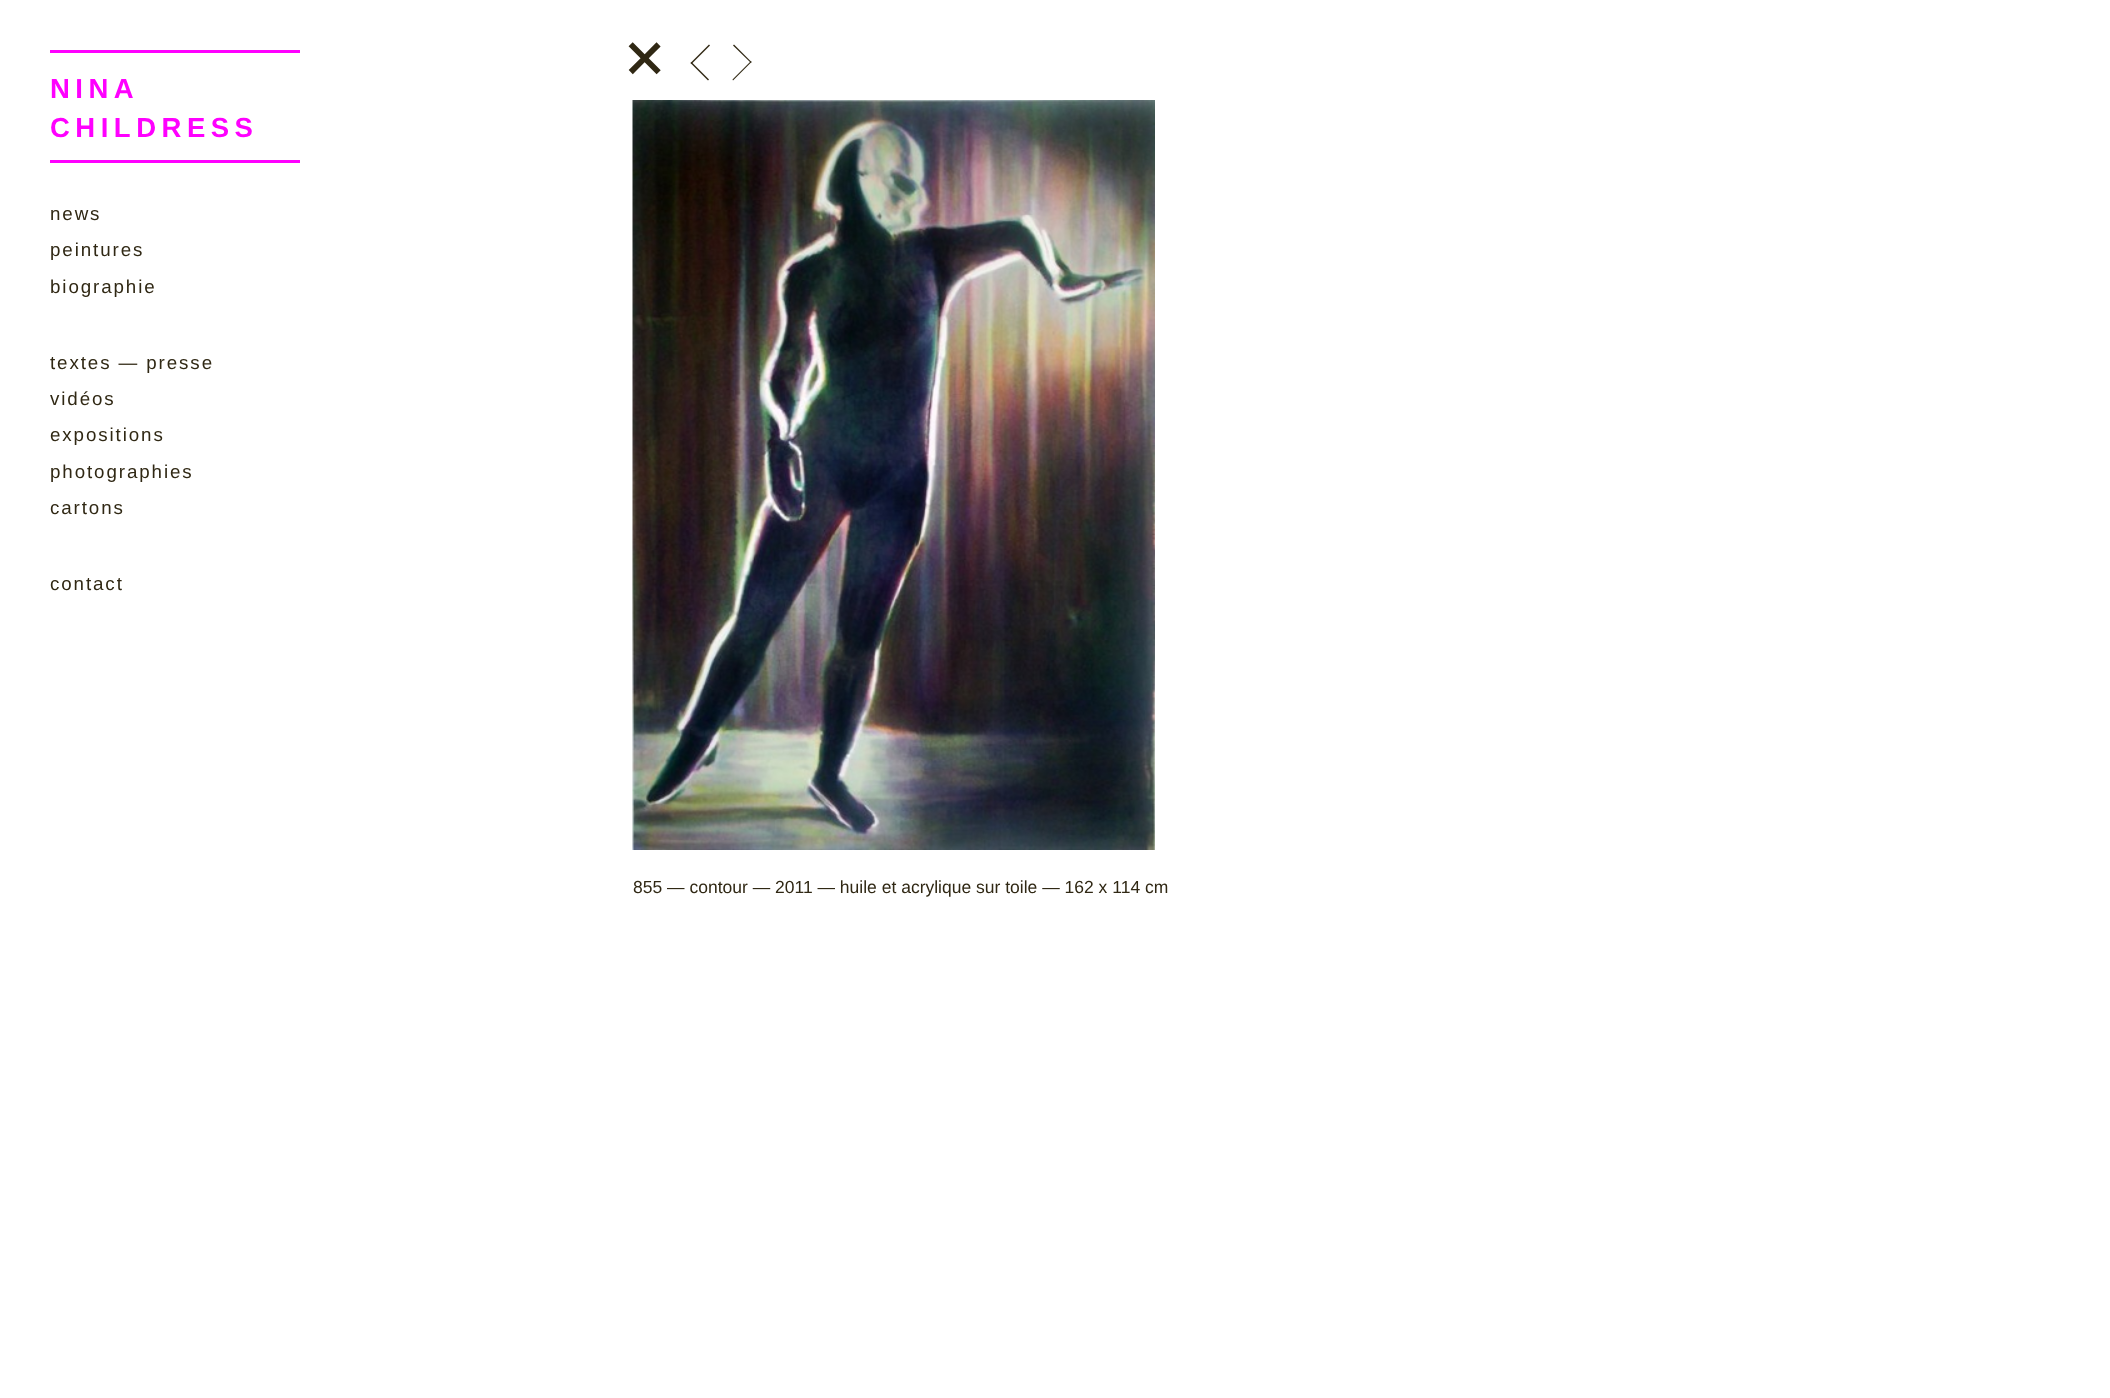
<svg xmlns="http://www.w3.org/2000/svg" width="2110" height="1398">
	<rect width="100%" height="100%" fill="#FFFFFF" />
	<rect x="50" y="50" width="250" height="3" fill="#FF00FF" />
	<rect x="50" y="160" width="250" height="3" fill="#FF00FF" />
	<g font-family="Liberation Sans" font-size="27.5" font-weight="700" letter-spacing="5.5" fill="#FF00FF">
		<text x="50" y="98">NINA</text>
		<text x="50" y="137">CHILDRESS</text>
	</g>
	<g font-family="Liberation Sans" font-size="18.75" letter-spacing="1.9" fill="#302814">
		<text x="50" y="220">news</text>
		<text x="50" y="256">peintures</text>
		<text x="50" y="293">biographie</text>
		<text x="50" y="369">textes — presse</text>
		<text x="50" y="405">vidéos</text>
		<text x="50" y="441">expositions</text>
		<text x="50" y="478">photographies</text>
		<text x="50" y="514">cartons</text>
		<text x="50" y="590">contact</text>
	</g>
	<text x="647" y="94" transform="rotate(-45 647 94)" font-family="Liberation Sans" font-size="81" fill="#302814">+</text>
	<image x="632" y="100" width="523" height="750" href="assets/img1.png" />
	<text x="633" y="893" font-family="Liberation Sans" font-size="17.5" fill="#302814">855 — contour — 2011 — huile et acrylique sur toile — 162 x 114 cm</text>
	<path d="M690.5 63L709 44.5L710 45.5L691.5 64Z" fill="#302814" />
	<path d="M690.5 63L691.5 62L709 79.5L708 80.5ZM733 45.5L734 44.5L751.5 62L751 63Z" fill="#302814" />
	<path d="M732.5 79.5L751 61L751.5 62L733 80.5Z" fill="#302814" />
</svg>
